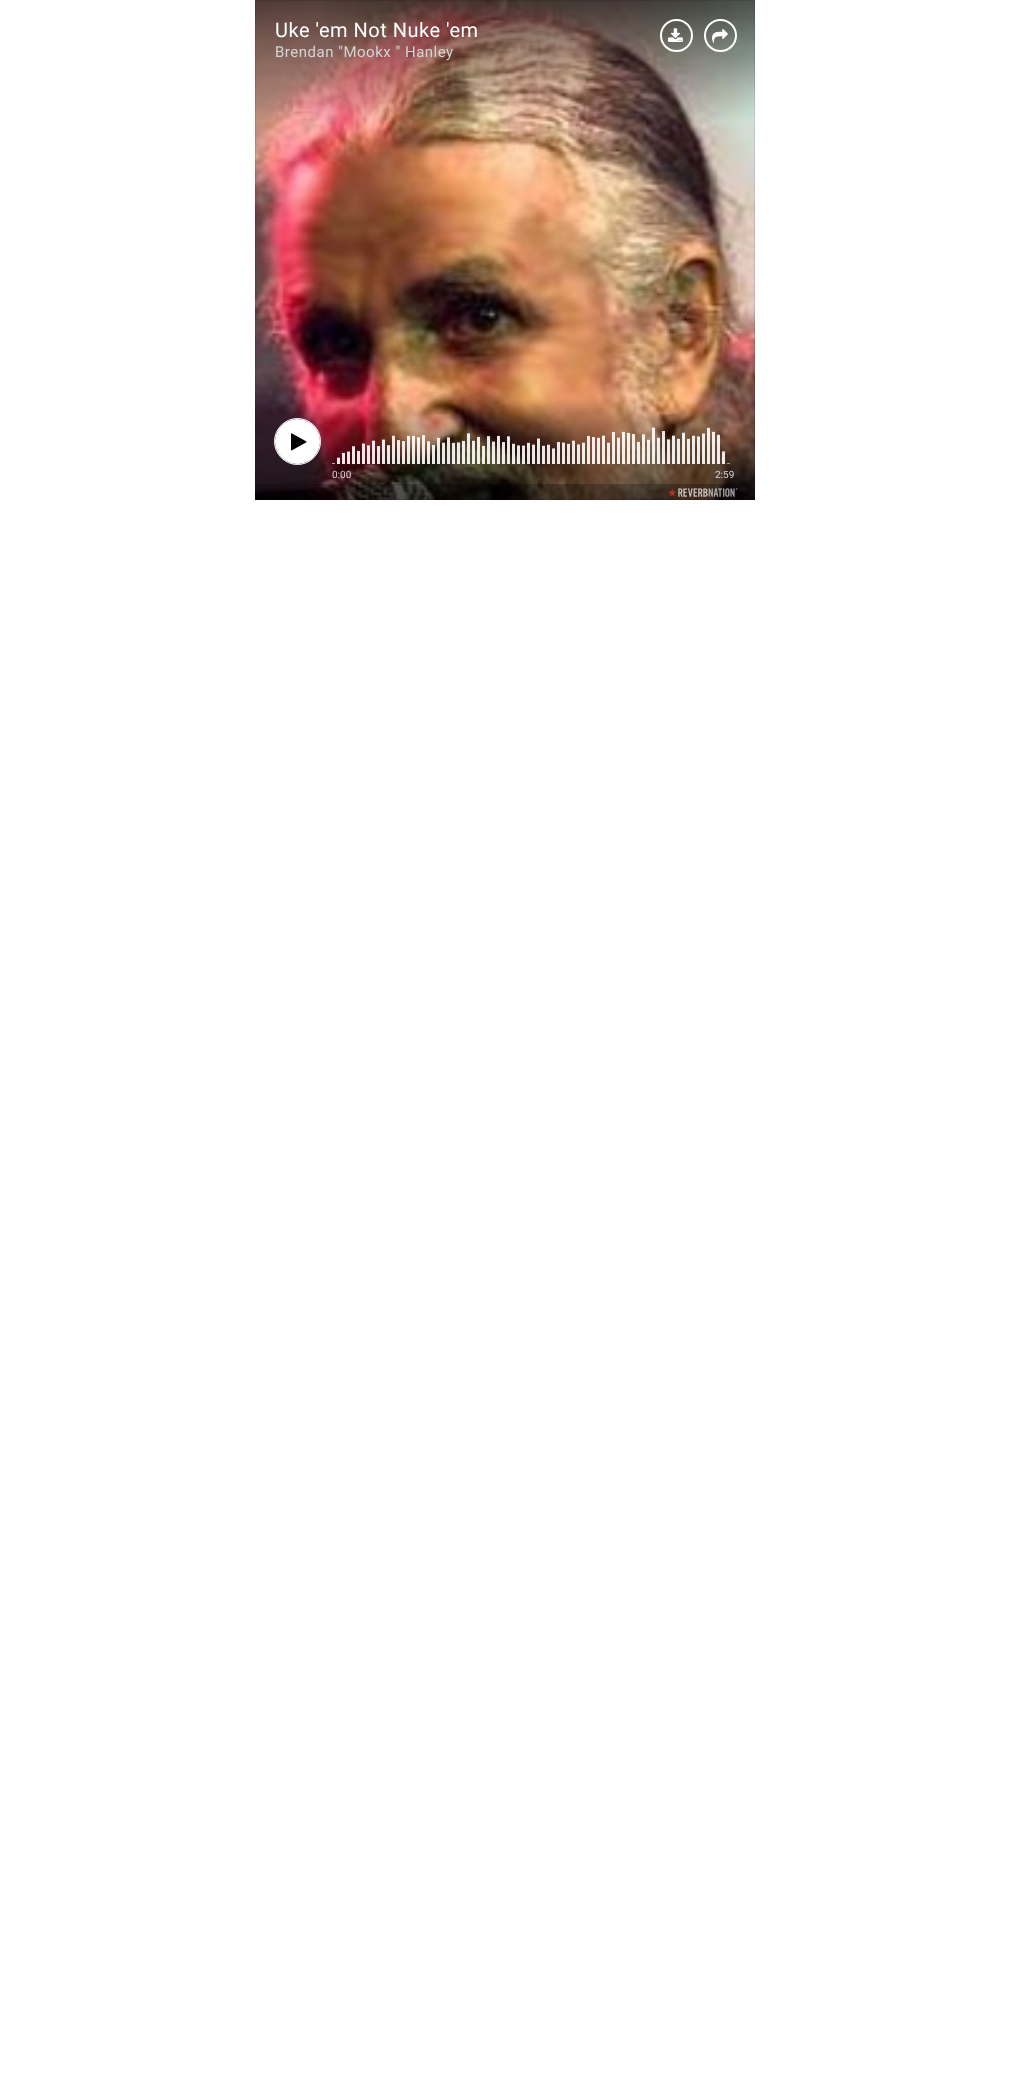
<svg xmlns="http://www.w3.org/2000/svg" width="1009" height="2086">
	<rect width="100%" height="100%" fill="#FFFFFF" />
	<image x="255" y="0" width="500" height="500" href="assets/img1.png" />
	<path d="M255 0H755L754 1H256Z" fill="#000000" fill-opacity="0.1" />
	<path d="M755 0V500H754V1Z" fill="#000000" fill-opacity="0.1" />
	<path d="M255 500V0L256 1V500Z" fill="#000000" fill-opacity="0.1" />
	<rect x="336" y="499" width="382" height="1" fill="#000000" fill-opacity="0.1" />
	<text x="275" y="37" font-family="Roboto" font-size="20" letter-spacing="0.5" fill="#FFFFFF">Uke 'em Not Nuke 'em</text>
	<text x="275" y="57" font-family="Roboto" font-size="15" letter-spacing="0.5" fill="#D1D5D5">Brendan "Mookx " Hanley</text>
	<circle cx="676.5" cy="35.5" r="15.5" fill="none" stroke="#FFFFFF" stroke-width="2" />
	<image x="668" y="28" width="15" height="14" href="assets/img2.png" />
	<circle cx="720.5" cy="35.5" r="15.5" fill="none" stroke="#FFFFFF" stroke-width="2" />
	<image x="712" y="28" width="16" height="16" href="assets/img3.png" />
	<image x="332" y="427" width="398" height="37" href="assets/img4.png" />
	<circle cx="297.5" cy="441.5" r="23" fill="none" stroke="#FFFFFF" />
	<circle cx="297.5" cy="441.5" r="22.5" fill="#FFFFFF" />
	<image x="291" y="433" width="16" height="18" href="assets/img5.png" />
	<g font-family="Roboto" font-size="10" fill="#D9D1D2">
		<text x="332" y="478">0:00</text>
		<text x="715" y="478">2:59</text>
	</g>
	<rect x="255" y="484" width="500" height="16" fill="#000000" fill-opacity="0.25" />
	<image x="668" y="488" width="70" height="9" href="assets/img6.png" />
</svg>
